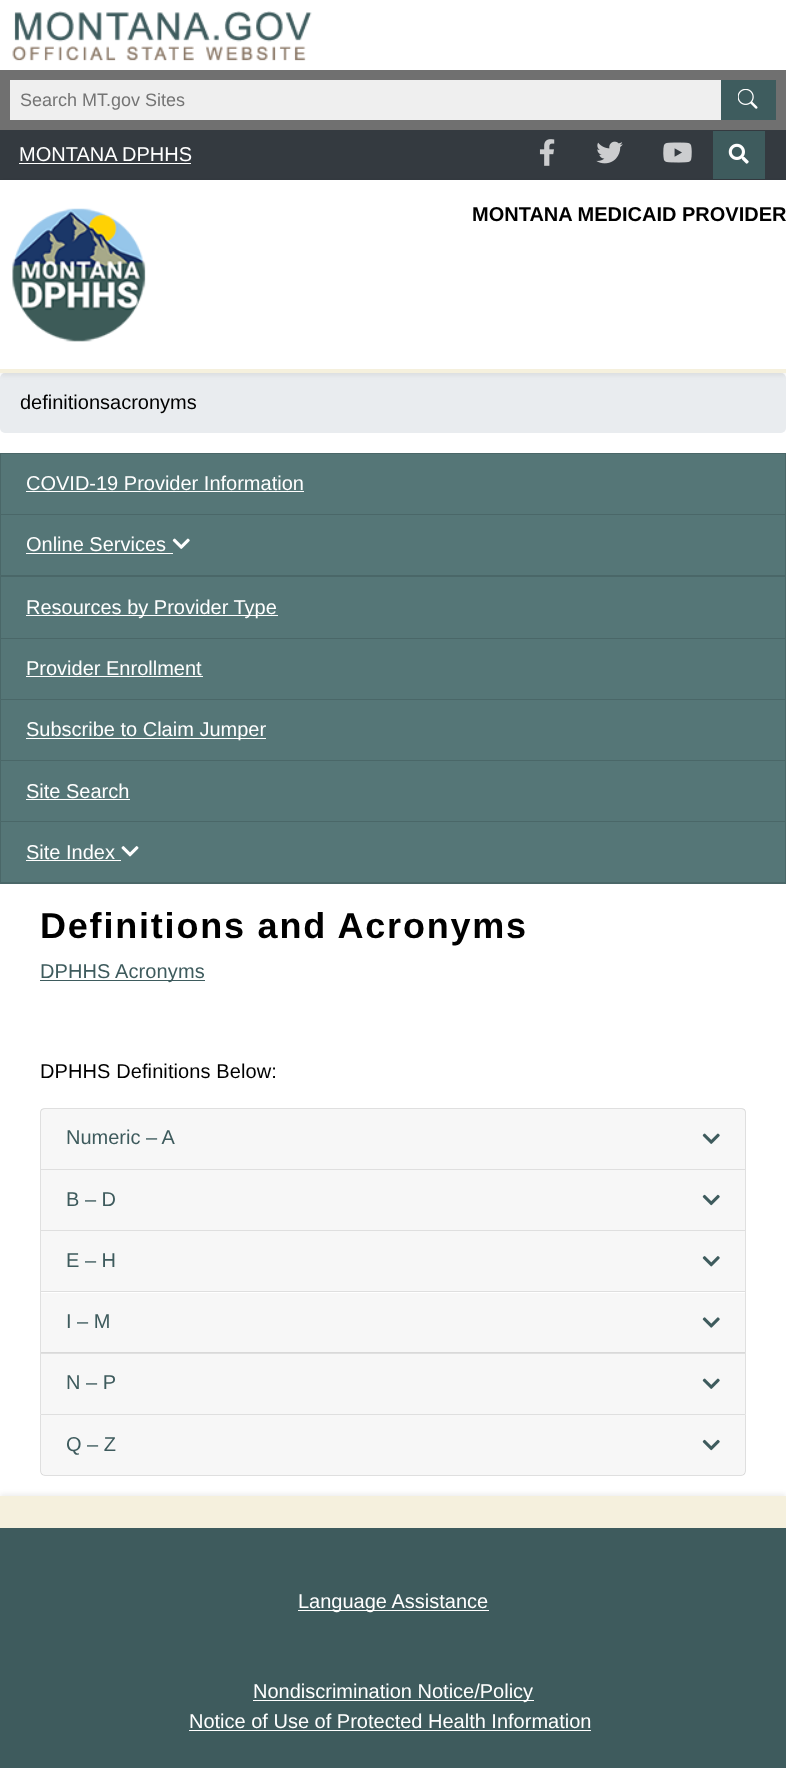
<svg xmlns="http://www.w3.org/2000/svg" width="786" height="1768">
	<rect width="100%" height="100%" fill="#FFFFFF" />
	<image x="12" y="11" width="300" height="50" href="assets/img1.png" />
	<rect x="5" y="75" width="776" height="50" fill="none" stroke="#707070" stroke-width="10" />
	<rect x="10" y="80" width="711" height="40" fill="#EFEFEF" />
	<text x="20" y="106" font-family="Liberation Sans" font-size="18" fill="#757575">Search MT.gov Sites</text>
	<rect x="721" y="80" width="55" height="40" fill="#3E5C5E" />
	<image x="738" y="89" width="20" height="20" href="assets/img2.png" />
	<rect x="0" y="130" width="786" height="50" fill="#343A40" />
	<text x="19" y="161" font-family="Liberation Sans" font-size="20" fill="#FFFFFF">MONTANA DPHHS</text>
	<rect x="19" y="163" width="172" height="1" fill="#FFFFFF" />
	<image x="539" y="139" width="16" height="27" href="assets/img3.png" />
	<image x="596" y="141" width="27" height="23" href="assets/img4.png" />
	<image x="663" y="142" width="29" height="21" href="assets/img5.png" />
	<rect x="713" y="131" width="52" height="48" fill="#3E5B5D" />
	<image x="728" y="143" width="21" height="21" href="assets/img6.png" />
	<rect x="0" y="373" width="786" height="60" rx="5" fill="#E9ECEF" />
	<rect x="0" y="183" width="786" height="192" fill="#000000" fill-opacity="0.07" filter="blur(2.5px)" />
	<rect x="0" y="180" width="786" height="189" fill="#FFFFFF" />
	<rect x="0" y="369" width="786" height="4" fill="#F5F0DD" />
	<image x="12" y="208" width="134" height="134" href="assets/img7.png" />
	<text x="472" y="221" font-family="Liberation Sans" font-size="20" font-weight="700" fill="#000000">MONTANA MEDICAID PROVIDER</text>
	<text x="20" y="409" font-family="Liberation Sans" font-size="20" fill="#000000">definitionsacronyms</text>
	<rect x="0.5" y="453.5" width="785" height="61" fill="#557677" stroke="#4A6768" />
	<text x="26" y="490" font-family="Liberation Sans" font-size="20" fill="#FFFFFF">COVID-19 Provider Information</text>
	<rect x="26" y="491" width="278" height="1" fill="#FFFFFF" />
	<rect x="0" y="515" width="786" height="61" fill="#557677" />
	<path d="M786 515V576L785 575V515Z" fill="#4A6768" />
	<path d="M786 576H0L1 575H785Z" fill="#000000" fill-opacity="0.12" />
	<path d="M0 576V515H1V575Z" fill="#000000" fill-opacity="0.12" />
	<text x="26" y="551" font-family="Liberation Sans" font-size="20" fill="#FFFFFF">Online Services</text>
	<rect x="26" y="553" width="147" height="1" fill="#FFFFFF" />
	<image x="172" y="538" width="18" height="11" href="assets/img8.png" />
	<rect x="0.5" y="576.5" width="785" height="62" fill="#557677" stroke="#4A6768" />
	<rect x="26" y="615" width="252" height="1" fill="#FFFFFF" />
	<text x="26" y="614" font-family="Liberation Sans" font-size="20" fill="#FFFFFF">Resources by Provider Type</text>
	<rect x="0" y="639" width="786" height="245" fill="#557677" />
	<path d="M786 639V700L785 699V639Z" fill="#4A6768" />
	<path d="M786 700H0L1 699H785Z" fill="#000000" fill-opacity="0.12" />
	<path d="M0 700V639H1V699Z" fill="#000000" fill-opacity="0.12" />
	<text x="26" y="675" font-family="Liberation Sans" font-size="20" fill="#FFFFFF">Provider Enrollment</text>
	<rect x="26" y="676" width="177" height="1" fill="#FFFFFF" />
	<path d="M786 700V761L785 760V700Z" fill="#4A6768" />
	<path d="M786 761H0L1 760H785Z" fill="#000000" fill-opacity="0.12" />
	<path d="M0 761V700H1V760Z" fill="#000000" fill-opacity="0.12" />
	<rect x="26" y="738" width="240" height="1" fill="#FFFFFF" />
	<text x="26" y="736" font-family="Liberation Sans" font-size="20" fill="#FFFFFF">Subscribe to Claim Jumper</text>
	<path d="M786 761V822L785 821V761Z" fill="#4A6768" />
	<path d="M786 822H0L1 821H785Z" fill="#000000" fill-opacity="0.12" />
	<path d="M0 822V761H1V821Z" fill="#000000" fill-opacity="0.12" />
	<text x="26" y="798" font-family="Liberation Sans" font-size="20" fill="#FFFFFF">Site Search</text>
	<rect x="26" y="799" width="104" height="1" fill="#FFFFFF" />
	<path d="M786 822V884L785 882V822Z" fill="#4A6768" />
	<path d="M786 884H0L1 882H785Z" fill="#000000" fill-opacity="0.12" />
	<path d="M0 884V822H1V882Z" fill="#000000" fill-opacity="0.12" />
	<text x="26" y="859" font-family="Liberation Sans" font-size="20" fill="#FFFFFF">Site Index</text>
	<rect x="26" y="860" width="95" height="1" fill="#FFFFFF" />
	<image x="121" y="846" width="18" height="11" href="assets/img9.png" />
	<text x="40" y="938" font-family="Liberation Sans" font-size="36" font-weight="700" letter-spacing="1.8" fill="#000000">Definitions and Acronyms</text>
	<rect x="40" y="980" width="165" height="1" fill="#3E5B5D" />
	<text x="40" y="978" font-family="Liberation Sans" font-size="20" letter-spacing="0.1" fill="#3E5B5D">DPHHS Acronyms</text>
	<text x="40" y="1078" font-family="Liberation Sans" font-size="20" letter-spacing="0.1" fill="#000000">DPHHS Definitions Below:</text>
	<path d="M45 1108H741C744 1108 746 1110 746 1112V1169H40V1112C40 1110 42 1108 45 1108ZM45 1109H741C743 1109 745 1110 745 1112V1169H41V1112C41 1110 43 1109 45 1109Z" fill="#DFDFDF" fill-rule="evenodd" />
	<rect x="41" y="1109" width="704" height="60" fill="#000000" fill-opacity="0.03" />
	<text x="66" y="1144" font-family="Liberation Sans" font-size="20" fill="#3E5B5D">Numeric – A</text>
	<image x="702" y="1133" width="18" height="11" href="assets/img10.png" />
	<path d="M40 1169H746L745 1170H41Z" fill="#DFDFDF" />
	<path d="M746 1169V1230H745V1170Z" fill="#000000" fill-opacity="0.12" />
	<path d="M40 1230V1169L41 1170V1230Z" fill="#000000" fill-opacity="0.12" />
	<rect x="41" y="1170" width="704" height="60" fill="#F7F7F7" />
	<text x="66" y="1206" font-family="Liberation Sans" font-size="20" fill="#3E5B5D">B – D</text>
	<image x="702" y="1194" width="18" height="12" href="assets/img11.png" />
	<path d="M40 1230H746L745 1231H41Z" fill="#DFDFDF" />
	<path d="M746 1230V1291H745V1231Z" fill="#000000" fill-opacity="0.12" />
	<path d="M40 1291V1230L41 1231V1291Z" fill="#000000" fill-opacity="0.12" />
	<rect x="41" y="1231" width="704" height="60" fill="#F7F7F7" />
	<text x="66" y="1267" font-family="Liberation Sans" font-size="20" fill="#3E5B5D">E – H</text>
	<image x="702" y="1256" width="18" height="11" href="assets/img12.png" />
	<path d="M40 1291H746L745 1292H41Z" fill="#DFDFDF" />
	<path d="M746 1291V1352H745V1292Z" fill="#000000" fill-opacity="0.12" />
	<path d="M40 1352V1291L41 1292V1352Z" fill="#000000" fill-opacity="0.12" />
	<rect x="41" y="1293" width="704" height="60" fill="#F7F7F7" />
	<text x="66" y="1328" font-family="Liberation Sans" font-size="20" fill="#3E5B5D">I – M</text>
	<image x="702" y="1317" width="18" height="11" href="assets/img13.png" />
	<path d="M40 1352H746L745 1354H41Z" fill="#000000" fill-opacity="0.12" />
	<path d="M746 1352V1414H745V1354Z" fill="#000000" fill-opacity="0.12" />
	<path d="M40 1414V1352L41 1354V1414Z" fill="#000000" fill-opacity="0.12" />
	<rect x="41" y="1354" width="704" height="60" fill="#F7F7F7" />
	<text x="66" y="1389" font-family="Liberation Sans" font-size="20" fill="#3E5B5D">N – P</text>
	<image x="702" y="1378" width="18" height="11" href="assets/img14.png" />
	<path d="M40.5 1414.5H745.5V1471C745.5 1473.5 743.5 1475.5 741 1475.5H45C42.5 1475.5 40.5 1473.5 40.5 1471Z" fill="none" stroke="#DFDFDF" />
	<rect x="41" y="1415" width="704" height="60" fill="#000000" fill-opacity="0.03" />
	<text x="66" y="1451" font-family="Liberation Sans" font-size="20" fill="#3E5B5D">Q – Z</text>
	<image x="702" y="1439" width="18" height="12" href="assets/img15.png" />
	<rect x="0" y="1494" width="786" height="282" fill="#000000" fill-opacity="0.07" filter="blur(2.5px)" />
	<rect x="0" y="1528" width="786" height="240" fill="#3E5B5D" />
	<rect x="0" y="1496" width="786" height="32" fill="#F5F0DD" />
	<rect x="298" y="1610" width="191" height="1" fill="#FFFFFF" />
	<text x="298" y="1608" font-family="Liberation Sans" font-size="20" fill="#FFFFFF">Language Assistance</text>
	<rect x="253" y="1700" width="281" height="1" fill="#FFFFFF" />
	<g font-family="Liberation Sans" font-size="20" fill="#FFFFFF">
		<text x="253" y="1698">Nondiscrimination Notice/Policy</text>
		<text x="189" y="1728">Notice of Use of Protected Health Information</text>
	</g>
	<rect x="189" y="1730" width="402" height="1" fill="#FFFFFF" />
</svg>
